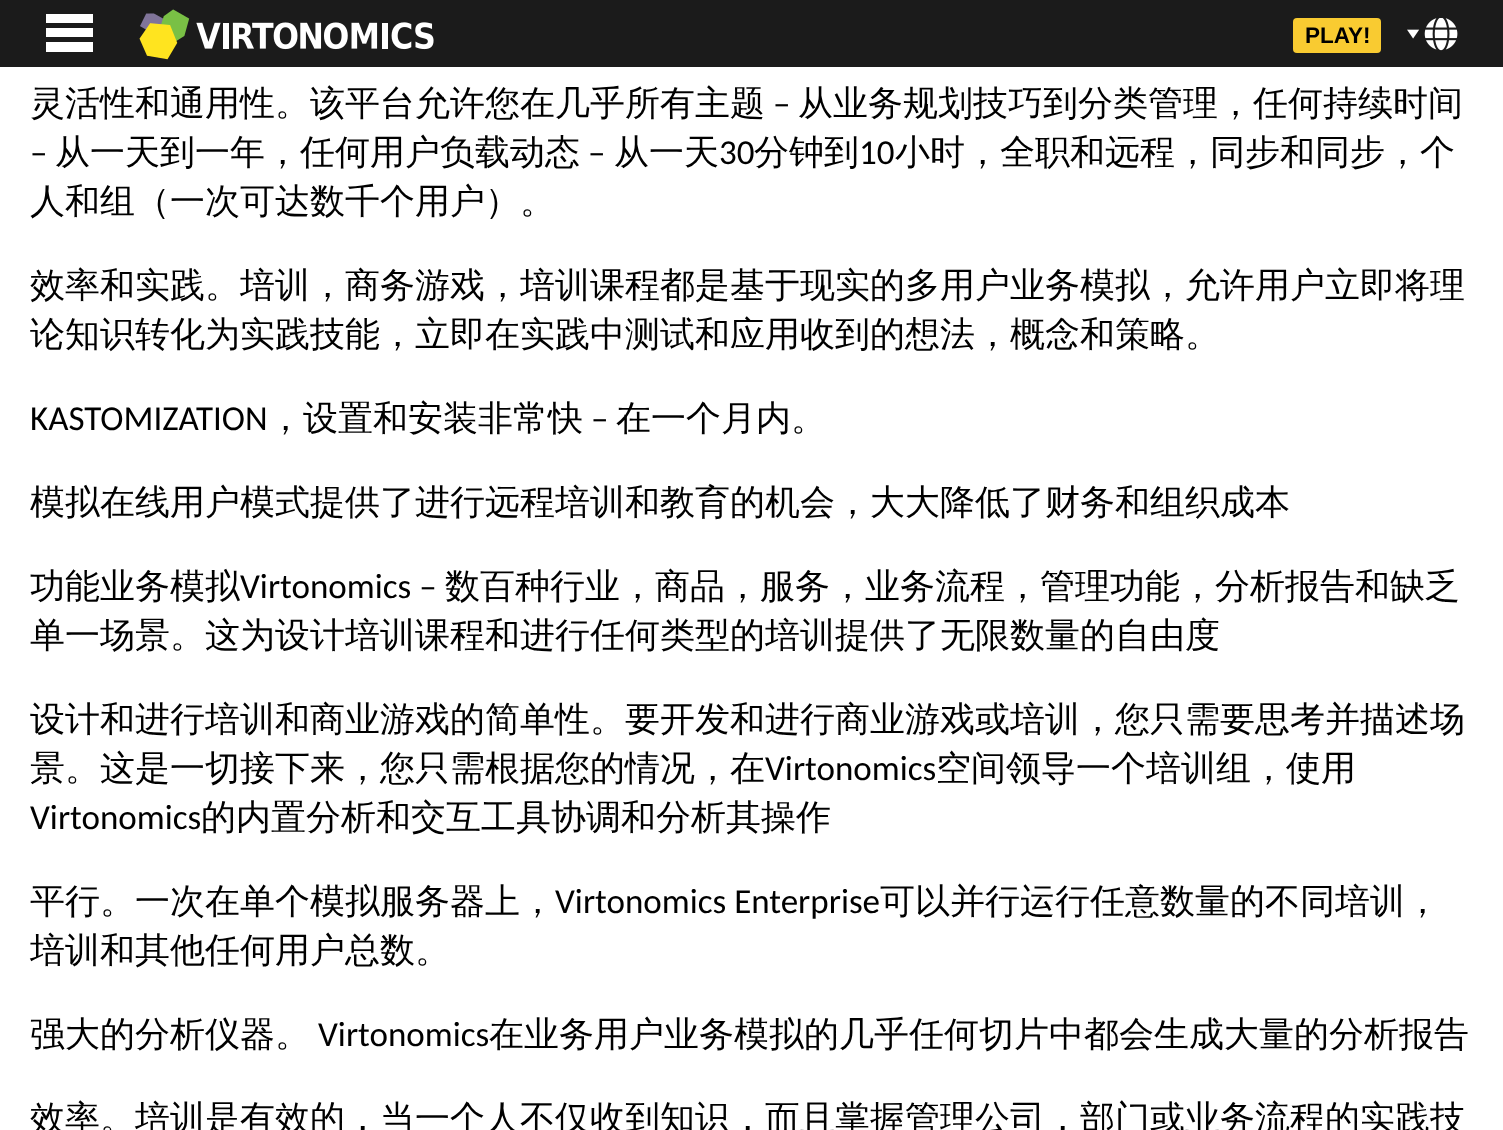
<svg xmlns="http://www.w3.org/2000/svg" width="1503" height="1130">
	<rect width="100%" height="100%" fill="#FFFFFF" />
	<rect x="0" y="0" width="1503" height="67" fill="#1B1B1B" />
	<rect x="46" y="14" width="47" height="9" fill="#FFFFFF" />
	<rect x="46" y="28" width="47" height="9" fill="#FFFFFF" />
	<rect x="46" y="42" width="47" height="10" fill="#FFFFFF" />
	<image x="139" y="9" width="295" height="51" href="assets/img1.png" />
	<rect x="1293" y="18" width="88" height="35" rx="4" fill="#F9CB31" />
	<text x="1305" y="43" font-family="Liberation Sans" font-size="22.5" font-weight="700" fill="#000000">PLAY!</text>
	<image x="1407" y="18" width="51" height="33" href="assets/img2.png" />
	<text x="30" y="115" font-family="WenQuanYi Zen Hei" font-size="35" font-weight="500" fill="#000000">灵活性和通用性。该平台允许您在几乎所有主题</text>
	<text x="773" y="115" font-family="Carlito" font-size="35" fill="#000000">–</text>
	<text x="798" y="115" font-family="WenQuanYi Zen Hei" font-size="35" font-weight="500" fill="#000000">从业务规划技巧到分类管理，任何持续时间</text>
	<text x="30" y="164" font-family="Carlito" font-size="35" fill="#000000">–</text>
	<text x="55" y="164" font-family="WenQuanYi Zen Hei" font-size="35" font-weight="500" fill="#000000">从一天到一年，任何用户负载动态</text>
	<text x="588" y="164" font-family="Carlito" font-size="35" fill="#000000">–</text>
	<text x="614" y="164" font-family="WenQuanYi Zen Hei" font-size="35" font-weight="500" fill="#000000">从一天</text>
	<text x="719" y="164" font-family="Carlito" font-size="35" fill="#000000">30</text>
	<text x="754" y="164" font-family="WenQuanYi Zen Hei" font-size="35" font-weight="500" fill="#000000">分钟到</text>
	<text x="859" y="164" font-family="Carlito" font-size="35" fill="#000000">10</text>
	<g font-family="WenQuanYi Zen Hei" font-size="35" font-weight="500" fill="#000000">
		<text x="895" y="164">小时，全职和远程，同步和同步，个</text>
		<text x="30" y="213">人和组（一次可达数千个用户）。</text>
		<text x="30" y="297">效率和实践。培训，商务游戏，培训课程都是基于现实的多用户业务模拟，允许用户立即将理</text>
		<text x="30" y="346">论知识转化为实践技能，立即在实践中测试和应用收到的想法，概念和策略。</text>
	</g>
	<text x="30" y="430" font-family="Carlito" font-size="35" fill="#000000">KASTOMIZATION</text>
	<text x="268" y="430" font-family="WenQuanYi Zen Hei" font-size="35" font-weight="500" fill="#000000">，设置和安装非常快</text>
	<text x="591" y="430" font-family="Carlito" font-size="35" fill="#000000">–</text>
	<g font-family="WenQuanYi Zen Hei" font-size="35" font-weight="500" fill="#000000">
		<text x="616" y="430">在一个月内。</text>
		<text x="30" y="514">模拟在线用户模式提供了进行远程培训和教育的机会，大大降低了财务和组织成本</text>
		<text x="30" y="598">功能业务模拟</text>
	</g>
	<text x="240" y="598" font-family="Carlito" font-size="35" fill="#000000">Virtonomics –</text>
	<g font-family="WenQuanYi Zen Hei" font-size="35" font-weight="500" fill="#000000">
		<text x="445" y="598">数百种行业，商品，服务，业务流程，管理功能，分析报告和缺乏</text>
		<text x="30" y="647">单一场景。这为设计培训课程和进行任何类型的培训提供了无限数量的自由度</text>
		<text x="30" y="731">设计和进行培训和商业游戏的简单性。要开发和进行商业游戏或培训，您只需要思考并描述场</text>
		<text x="30" y="780">景。这是一切接下来，您只需根据您的情况，在</text>
	</g>
	<text x="765" y="780" font-family="Carlito" font-size="35" fill="#000000">Virtonomics</text>
	<text x="936" y="780" font-family="WenQuanYi Zen Hei" font-size="35" font-weight="500" fill="#000000">空间领导一个培训组，使用</text>
	<text x="30" y="829" font-family="Carlito" font-size="35" fill="#000000">Virtonomics</text>
	<g font-family="WenQuanYi Zen Hei" font-size="35" font-weight="500" fill="#000000">
		<text x="201" y="829">的内置分析和交互工具协调和分析其操作</text>
		<text x="30" y="913">平行。一次在单个模拟服务器上，</text>
	</g>
	<text x="555" y="913" font-family="Carlito" font-size="35" fill="#000000">Virtonomics Enterprise</text>
	<g font-family="WenQuanYi Zen Hei" font-size="35" font-weight="500" fill="#000000">
		<text x="880" y="913">可以并行运行任意数量的不同培训，</text>
		<text x="30" y="962">培训和其他任何用户总数。</text>
		<text x="30" y="1046">强大的分析仪器。</text>
	</g>
	<text x="318" y="1046" font-family="Carlito" font-size="35" fill="#000000">Virtonomics</text>
	<g font-family="WenQuanYi Zen Hei" font-size="35" font-weight="500" fill="#000000">
		<text x="489" y="1046">在业务用户业务模拟的几乎任何切片中都会生成大量的分析报告</text>
		<text x="30" y="1130">效率。培训是有效的，当一个人不仅收到知识，而且掌握管理公司，部门或业务流程的实践技</text>
	</g>
</svg>
